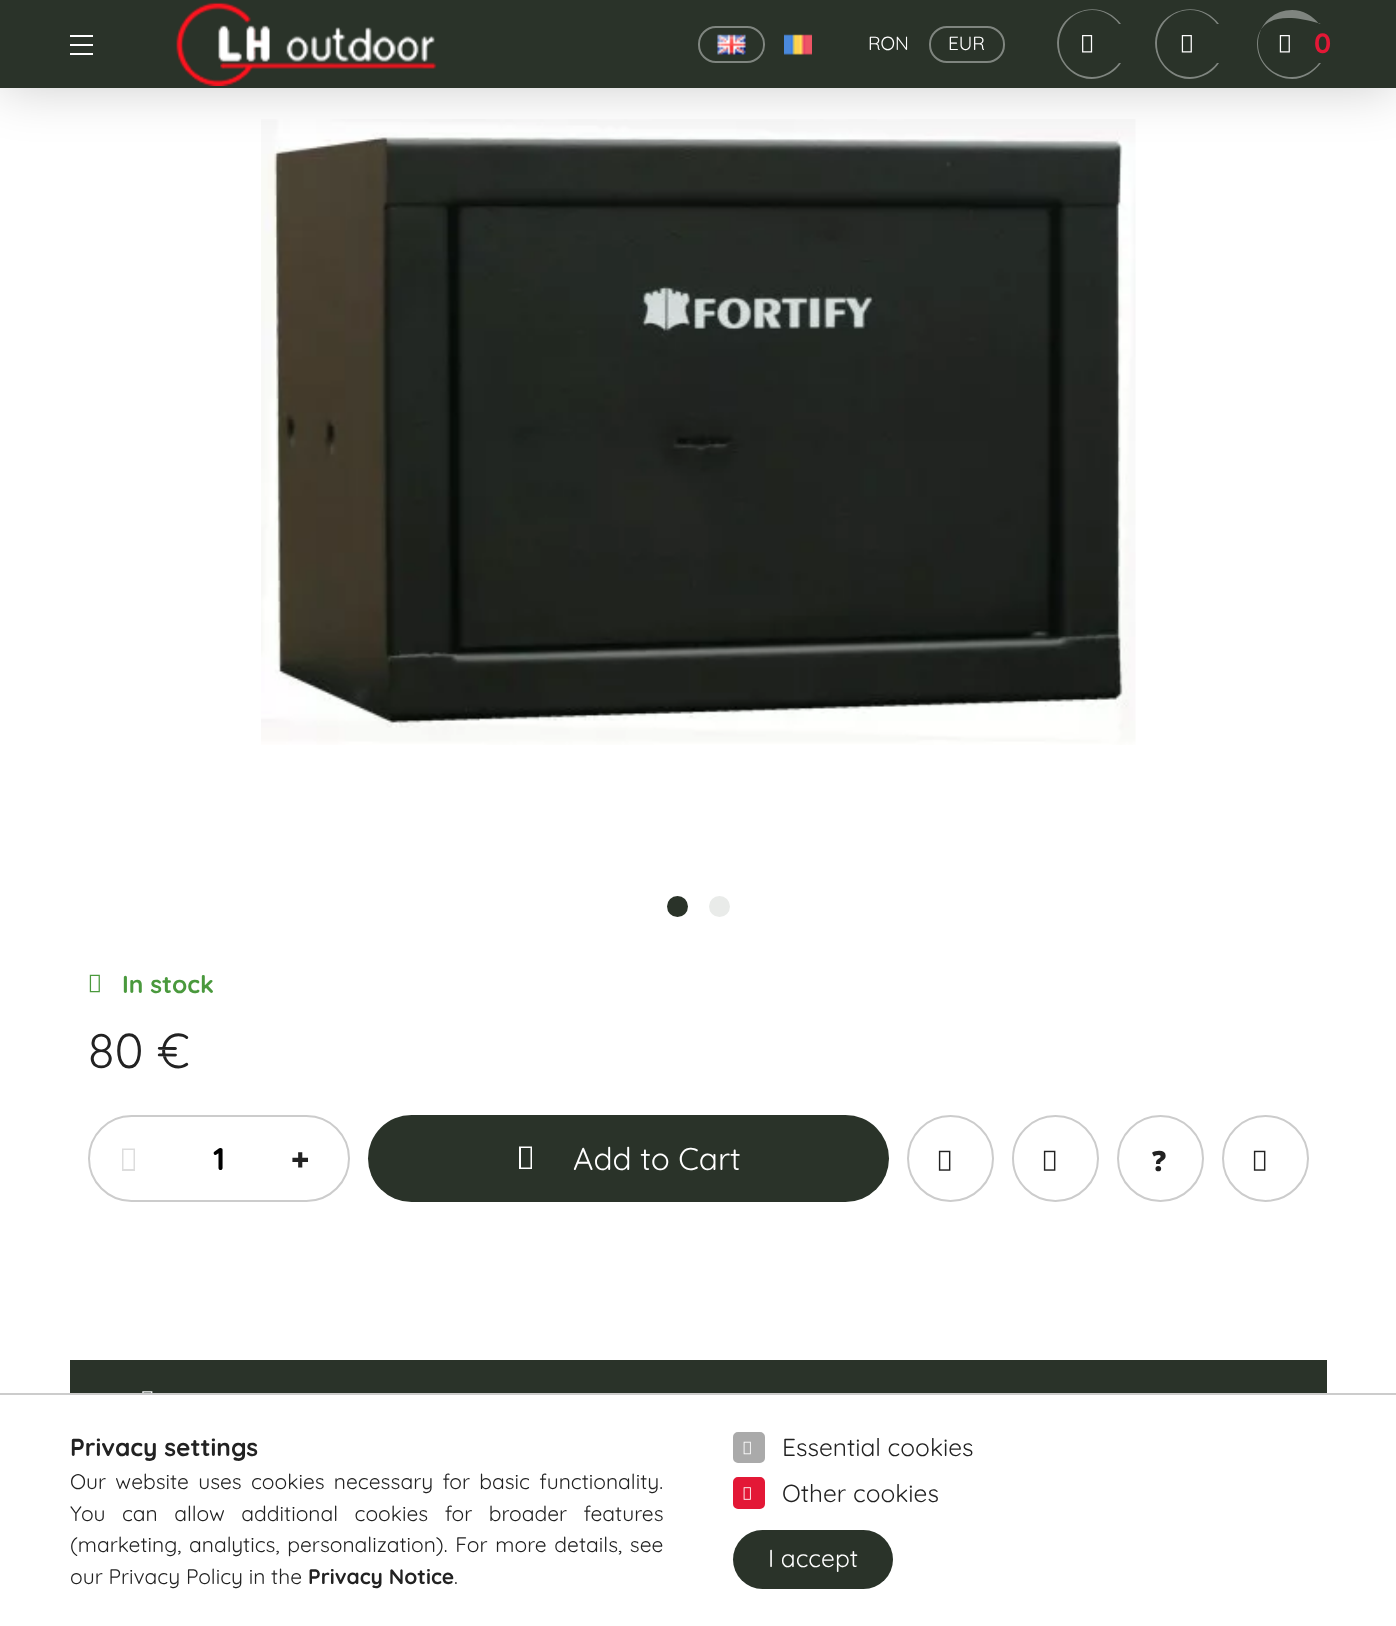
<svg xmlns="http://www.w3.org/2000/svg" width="1396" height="1626">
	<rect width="100%" height="100%" fill="#FFFFFF" />
	<image x="261" y="119" width="875" height="626" href="assets/img6.png" />
	<rect x="0" y="0" width="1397" height="88" fill="#000000" fill-opacity="0.2" filter="blur(26px)" />
	<rect x="0" y="0" width="1396" height="88" fill="#2A3329" />
	<rect x="70" y="35" width="23" height="2" fill="#FFFFFF" />
	<rect x="70" y="44" width="23" height="2" fill="#FFFFFF" />
	<rect x="70" y="53" width="23" height="2" fill="#FFFFFF" />
	<image x="176" y="2" width="261" height="84" href="assets/img1.png" />
	<rect x="699" y="27" width="65" height="35" rx="17" fill="none" stroke="#7F857F" stroke-width="2" />
	<image x="717" y="34" width="29" height="21" href="assets/img2.png" />
	<image x="784" y="34" width="28" height="21" href="assets/img3.png" />
	<text x="868" y="50" font-family="Quicksand" font-size="19" fill="#FFFFFF">RON</text>
	<rect x="930" y="27" width="74" height="35" rx="17" fill="none" stroke="#7F857F" stroke-width="2" />
	<text x="948" y="50" font-family="Quicksand" font-size="19" fill="#FFFFFF">EUR</text>
	<path d="M1121 63H1119C1113 71 1103 77 1092 77C1074 77 1059 62 1059 44C1059 25 1074 10 1092 10C1103 10 1113 16 1119 24H1121C1113 13 1099 7 1085 10C1076 12 1068 17 1063 24C1044 52 1074 90 1105 76C1111 74 1117 69 1121 63Z" fill="#7F857F" />
	<image x="1082" y="35" width="11" height="18" href="assets/img4.png" />
	<path d="M1219 63H1217C1211 71 1201 77 1190 77C1172 77 1157 62 1157 44C1157 25 1172 10 1190 10C1201 10 1211 16 1217 24H1219C1211 13 1197 7 1183 10C1174 12 1166 17 1161 24C1142 52 1172 90 1203 76C1209 74 1215 69 1219 63Z" fill="#7F857F" />
	<image x="1181" y="35" width="11" height="18" href="assets/img5.png" />
	<path d="M1321 63H1319C1313 71 1303 77 1292 77C1273 77 1258 62 1258 44C1258 25 1273 10 1292 10C1303 10 1313 16 1319 24H1321C1273 9 1257 25 1257 44C1257 63 1273 79 1292 79C1304 79 1314 72 1321 63Z" fill="#7F857F" />
	<image x="1279" y="35" width="11" height="18" href="assets/img5.png" />
	<text x="1314" y="53" font-family="Quicksand" font-size="28" font-weight="700" fill="#E31836">0</text>
	<circle cx="677.5" cy="906.5" r="10.5" fill="#2A3329" />
	<circle cx="719.5" cy="906.5" r="10.5" fill="#E9EBE9" />
	<image x="89" y="974" width="11" height="19" href="assets/img7.png" />
	<text x="122" y="993" font-family="Quicksand" font-size="24.5" font-weight="700" fill="#4A993D">In stock</text>
	<text x="88" y="1068" font-family="Quicksand" font-size="49" fill="#222222">80 €</text>
	<rect x="89" y="1116" width="260" height="85" rx="42.5" fill="none" stroke="#CCCCCC" stroke-width="2" />
	<path d="M122 1171V1148.5H135V1171ZM123.5 1169H133.5V1150H123.5Z" fill="#DDDDDD" />
	<text x="213" y="1170" font-family="Quicksand" font-size="31.5" font-weight="700" fill="#000000">1</text>
	<text x="291" y="1171" font-family="Noto Sans" font-size="31.5" font-weight="900" fill="#222222">+</text>
	<rect x="368" y="1115" width="521" height="87" rx="43.5" fill="#2A3329" />
	<path d="M519 1169V1146.5H532V1169ZM521 1167.5H530.5V1148H521Z" fill="#FFFFFF" />
	<text x="573" y="1170" font-family="Quicksand" font-size="31.5" fill="#FFFFFF">Add to Cart</text>
	<circle cx="950.5" cy="1158.5" r="42.5" fill="none" stroke="#CCCCCC" stroke-width="2" />
	<image x="938" y="1150" width="13" height="21" href="assets/img8.png" />
	<circle cx="1055.5" cy="1158.5" r="42.5" fill="none" stroke="#CCCCCC" stroke-width="2" />
	<image x="1043" y="1150" width="13" height="21" href="assets/img8.png" />
	<circle cx="1160.5" cy="1158.5" r="42.5" fill="none" stroke="#CCCCCC" stroke-width="2" />
	<text x="1152" y="1171" font-family="Noto Sans" font-size="28" font-weight="900" fill="#222222">?</text>
	<circle cx="1265.5" cy="1158.5" r="42.5" fill="none" stroke="#CCCCCC" stroke-width="2" />
	<image x="1253" y="1150" width="13" height="21" href="assets/img8.png" />
	<rect x="70" y="1360" width="1257" height="33" fill="#2A3329" />
	<image x="142" y="1391" width="11" height="2" href="assets/img9.png" />
	<rect x="0" y="1393" width="1396" height="2" fill="#CCCCCC" />
	<text x="70" y="1456" font-family="Quicksand" font-size="24.5" font-weight="700" fill="#222222">Privacy settings</text>
	<g font-family="Quicksand" font-size="21" fill="#222222">
		<text x="70" y="1489" word-spacing="3.5">Our website uses cookies necessary for basic functionality.</text>
		<text x="70" y="1521" word-spacing="10.75">You can allow additional cookies for broader features</text>
		<text x="70" y="1552" word-spacing="2">(marketing, analytics, personalization). For more details, see</text>
		<text x="70" y="1584">our Privacy Policy in the</text>
	</g>
	<text x="308" y="1584" font-family="Quicksand" font-size="21" font-weight="700" fill="#222222">Privacy Notice</text>
	<text x="454" y="1584" font-family="Quicksand" font-size="21" fill="#222222">.</text>
	<rect x="734" y="1433" width="30" height="29" rx="4" fill="#AAAAAA" stroke="#AAAAAA" stroke-width="2" />
	<image x="743" y="1441" width="8" height="14" href="assets/img10.png" />
	<text x="782" y="1456" font-family="Quicksand" font-size="24.5" fill="#222222">Essential cookies</text>
	<rect x="734" y="1478" width="30" height="30" rx="4" fill="#E31836" stroke="#E31836" stroke-width="2" />
	<image x="743" y="1487" width="8" height="13" href="assets/img11.png" />
	<text x="782" y="1502" font-family="Quicksand" font-size="24.5" fill="#222222">Other cookies</text>
	<rect x="733" y="1530" width="160" height="59" rx="29.5" fill="#2A3329" />
	<text x="768" y="1567" font-family="Quicksand" font-size="24.5" fill="#FFFFFF">I accept</text>
</svg>
